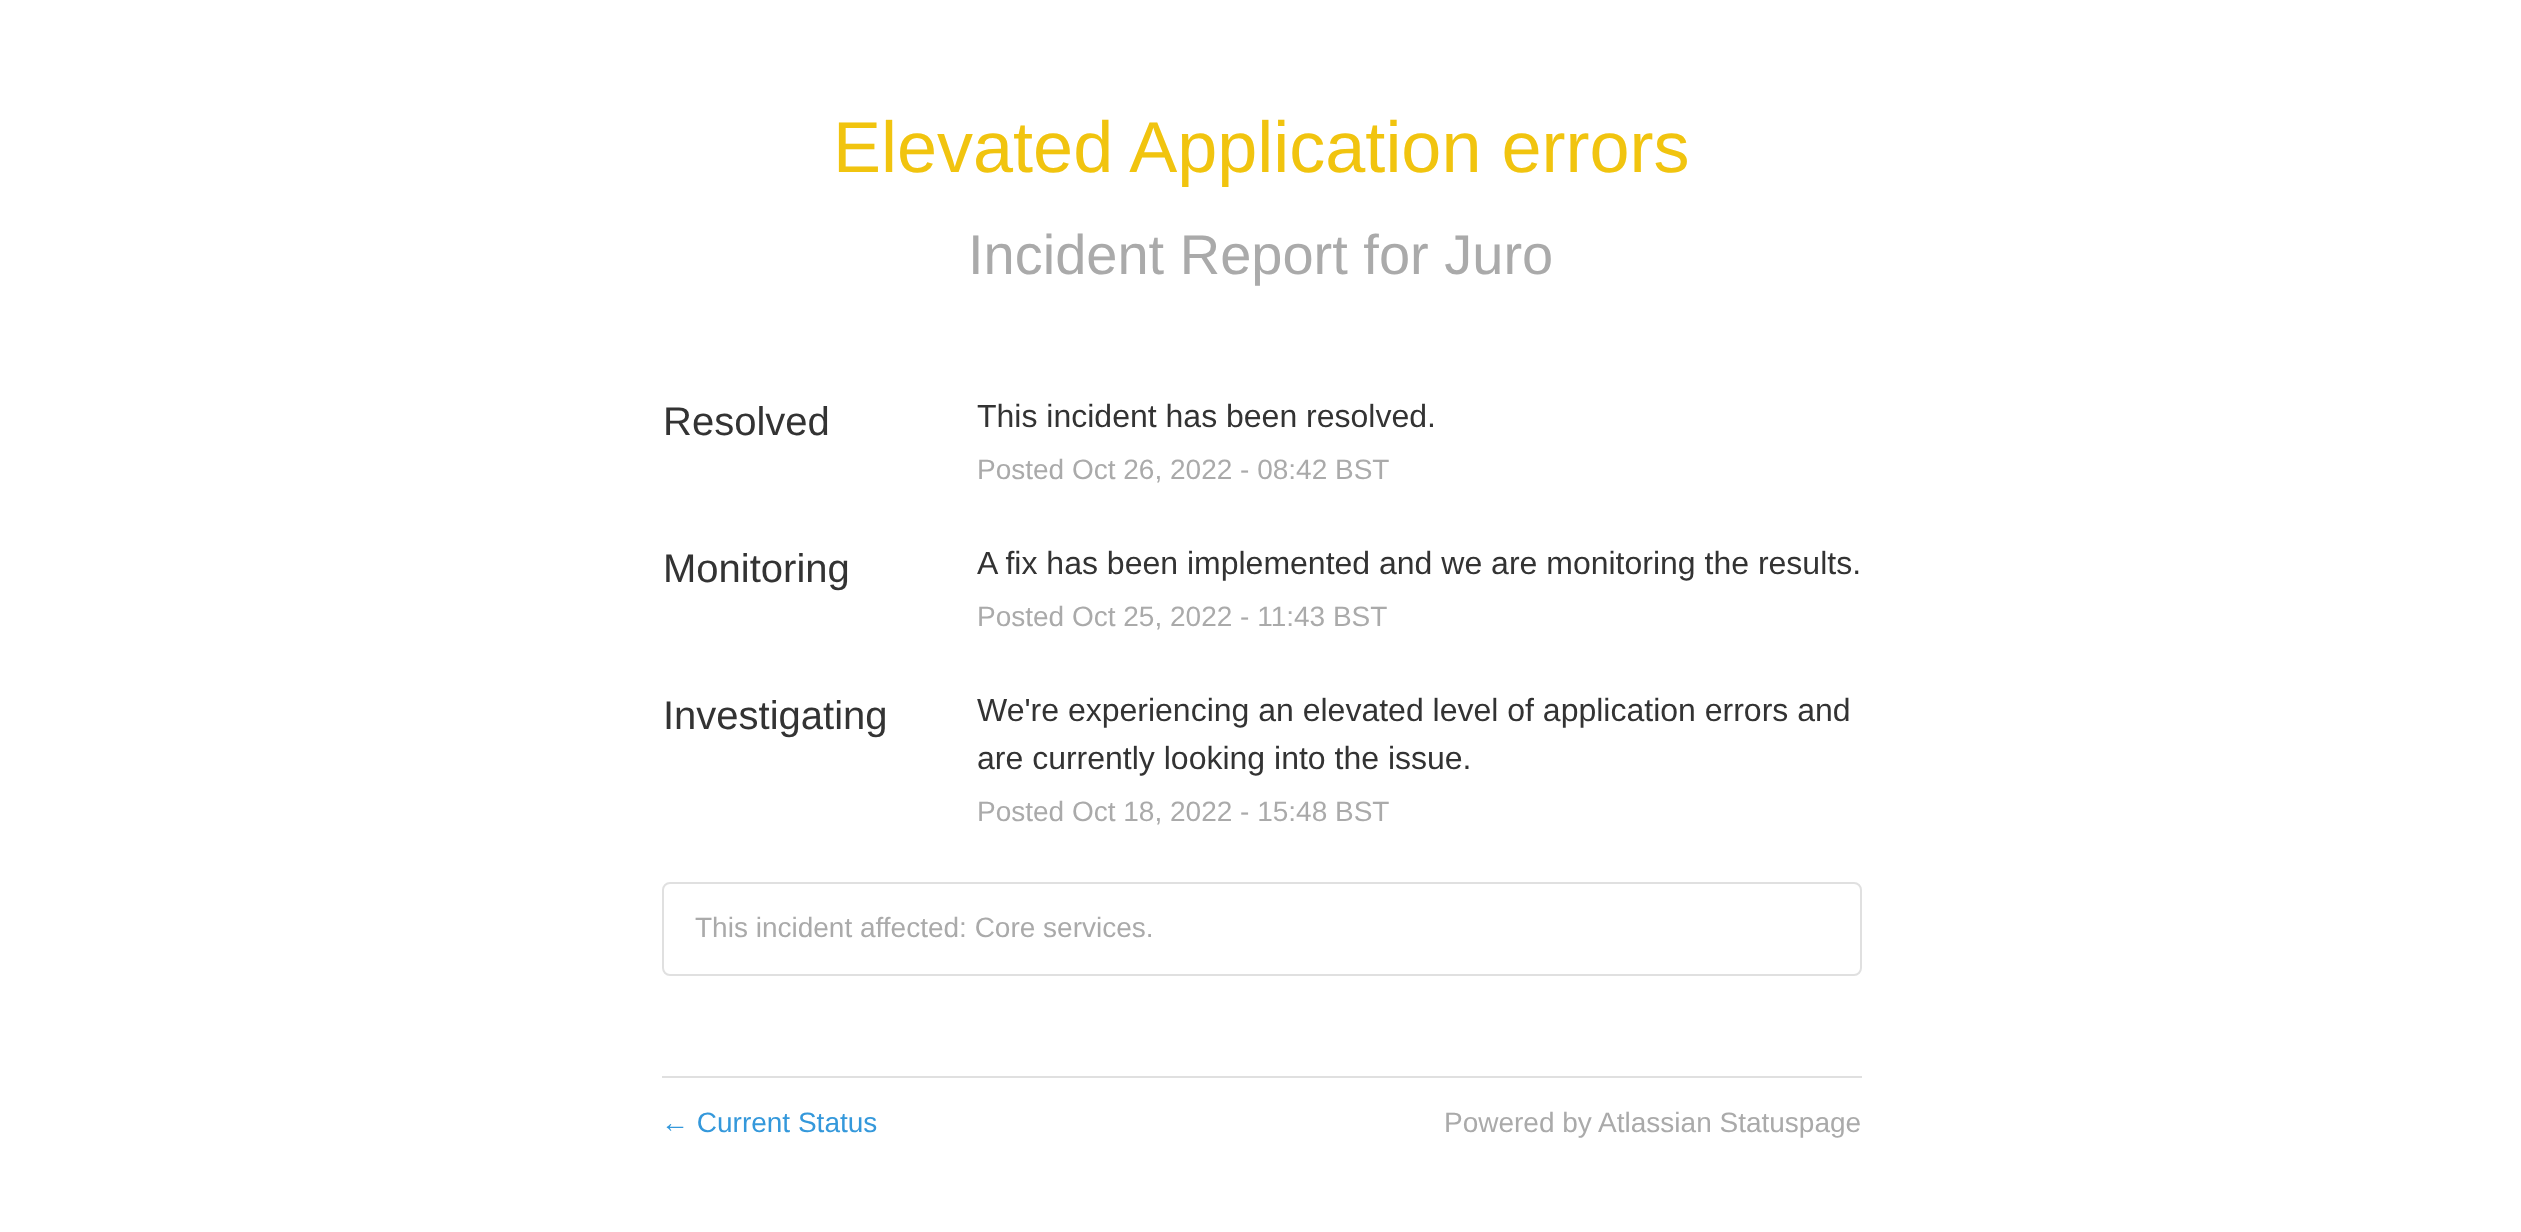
<svg xmlns="http://www.w3.org/2000/svg" width="2521" height="1232">
	<rect width="100%" height="100%" fill="#FFFFFF" />
	<text x="833" y="172" font-family="Liberation Sans" font-size="72" fill="#F1C40F">Elevated Application errors</text>
	<text x="968" y="274" font-family="Liberation Sans" font-size="56" fill="#AAAAAA">Incident Report for Juro</text>
	<text x="663" y="435" font-family="Liberation Sans" font-size="40" fill="#333333">Resolved</text>
	<text x="977" y="427" font-family="Liberation Sans" font-size="32" fill="#333333">This incident has been resolved.</text>
	<text x="977" y="479" font-family="Liberation Sans" font-size="28" fill="#AAAAAA">Posted Oct 26, 2022 - 08:42 BST</text>
	<text x="663" y="582" font-family="Liberation Sans" font-size="40" fill="#333333">Monitoring</text>
	<text x="977" y="574" font-family="Liberation Sans" font-size="32" fill="#333333">A fix has been implemented and we are monitoring the results.</text>
	<text x="977" y="626" font-family="Liberation Sans" font-size="28" fill="#AAAAAA">Posted Oct 25, 2022 - 11:43 BST</text>
	<text x="663" y="729" font-family="Liberation Sans" font-size="40" fill="#333333">Investigating</text>
	<g font-family="Liberation Sans" font-size="32" fill="#333333">
		<text x="977" y="721">We're experiencing an elevated level of application errors and</text>
		<text x="977" y="769">are currently looking into the issue.</text>
	</g>
	<text x="977" y="821" font-family="Liberation Sans" font-size="28" fill="#AAAAAA">Posted Oct 18, 2022 - 15:48 BST</text>
	<rect x="663" y="883" width="1198" height="92" rx="7" fill="none" stroke="#E0E0E0" stroke-width="2" />
	<text x="695" y="937" font-family="Liberation Sans" font-size="28" fill="#AAAAAA">This incident affected: Core services.</text>
	<rect x="662" y="1076" width="1200" height="2" fill="#E0E0E0" />
	<text x="661" y="1132" font-family="Liberation Sans" font-size="28" fill="#3498DB">← Current Status</text>
	<text x="1444" y="1132" font-family="Liberation Sans" font-size="28" fill="#AAAAAA">Powered by Atlassian Statuspage</text>
</svg>
